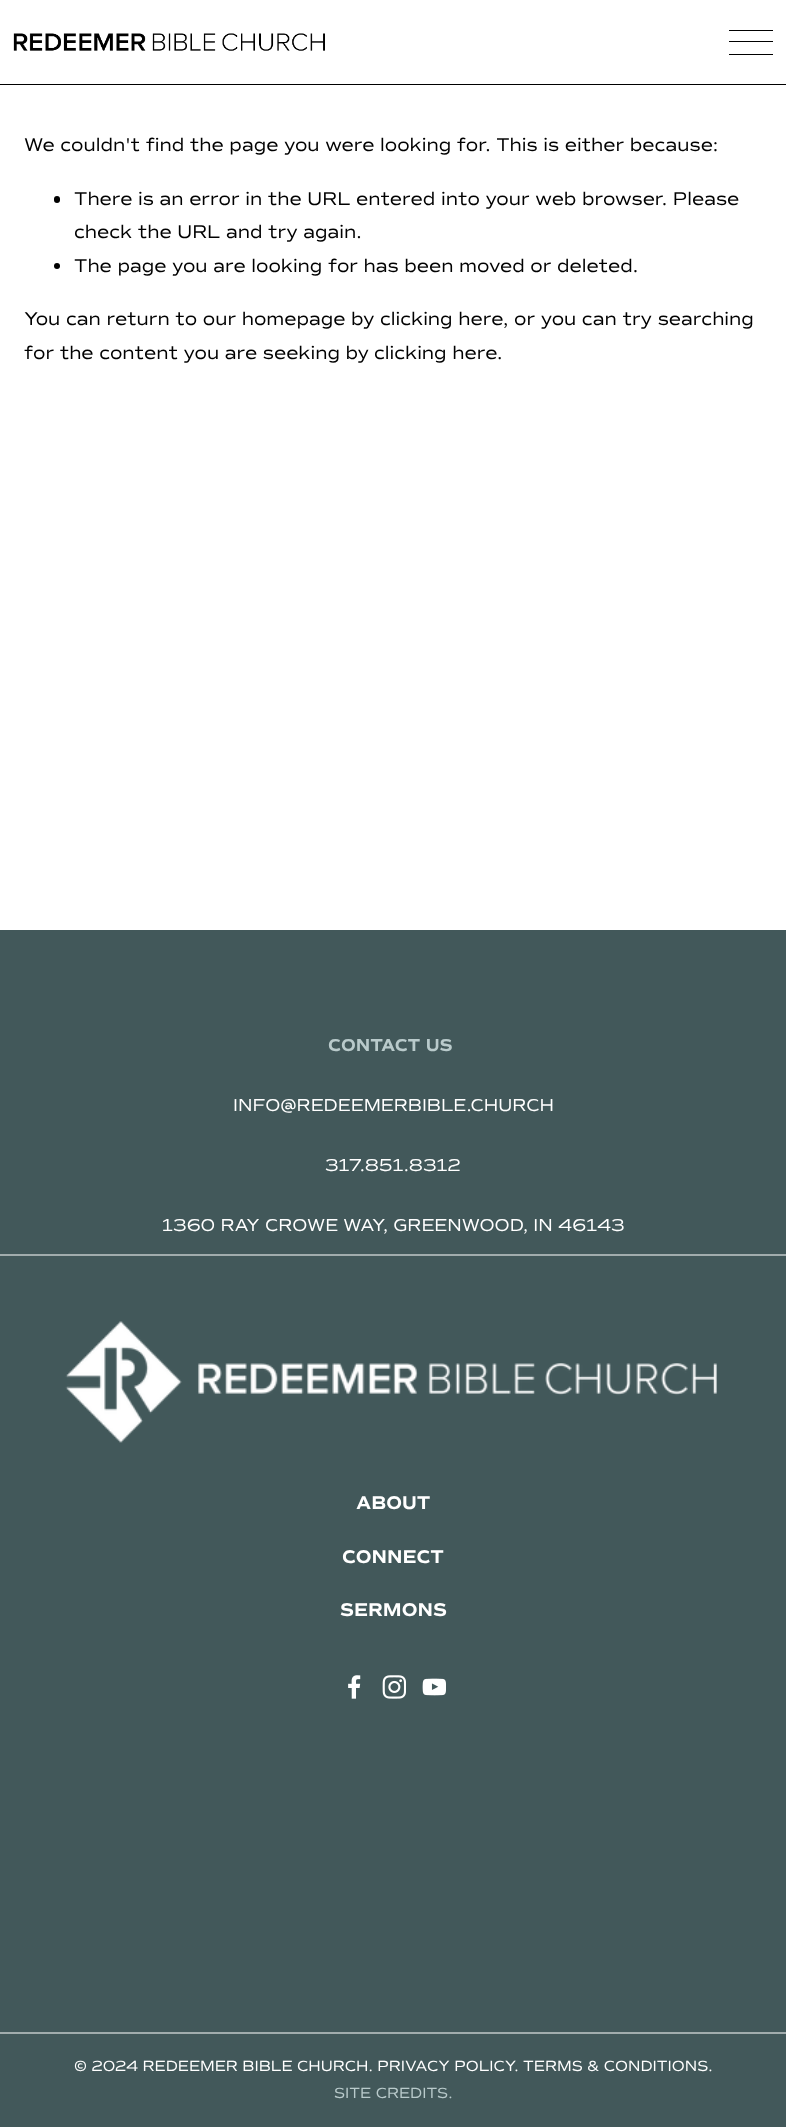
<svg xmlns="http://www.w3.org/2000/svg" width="786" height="2127">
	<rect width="100%" height="100%" fill="#FFFFFF" />
	<rect x="0" y="84" width="786" height="1" fill="#000000" />
	<image x="13" y="33" width="312" height="18" href="assets/img1.png" />
	<rect x="729" y="30" width="44" height="1" fill="#000000" />
	<rect x="729" y="41" width="44" height="1" fill="#000000" />
	<rect x="729" y="54" width="44" height="1" fill="#000000" />
	<text x="24" y="151" font-family="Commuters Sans" font-size="18.65" fill="#000000">We couldn't find the page you were looking for. This is either because:</text>
	<rect x="54" y="196" width="6" height="7" rx="3" fill="#000000" />
	<g font-family="Commuters Sans" font-size="18.65" fill="#000000">
		<text x="74" y="205">There is an error in the URL entered into your web browser. Please</text>
		<text x="74" y="238">check the URL and try again.</text>
	</g>
	<circle cx="57" cy="266" r="3" fill="#000000" />
	<g font-family="Commuters Sans" font-size="18.65" fill="#000000">
		<text x="74" y="272">The page you are looking for has been moved or deleted.</text>
		<text x="24" y="325">You can return to our homepage by</text>
		<text x="380" y="325">clicking here</text>
		<text x="503" y="325">, or you can try searching</text>
		<text x="24" y="359">for the content you are seeking by</text>
		<text x="374" y="359">clicking here</text>
		<text x="497" y="359">.</text>
	</g>
	<rect x="0" y="930" width="786" height="1197" fill="#42585A" />
	<text x="328" y="1051" font-family="Commuters Sans" font-size="17.5" font-weight="700" fill="#B9CACB">CONTACT US</text>
	<g font-family="Commuters Sans" font-size="17.5" fill="#FFFFFF">
		<text x="233" y="1111">INFO@REDEEMERBIBLE.CHURCH</text>
		<text x="325" y="1171">317.851.8312</text>
		<text x="162" y="1231">1360 RAY CROWE WAY, GREENWOOD, IN 46143</text>
	</g>
	<path d="M-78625 1092.5V1417.5M0 1255H786" fill="none" stroke="#FFFFFF" stroke-width="1.2" stroke-linecap="square" />
	<image x="65" y="1321" width="652" height="122" href="assets/img2.png" />
	<g font-family="Commuters Sans" font-size="18.65" font-weight="700" fill="#FFFFFF">
		<text x="356" y="1509">ABOUT</text>
		<text x="342" y="1563">CONNECT</text>
		<text x="340" y="1616">SERMONS</text>
	</g>
	<image x="348" y="1675" width="13" height="24" href="assets/img3.png" />
	<image x="382" y="1675" width="24" height="24" href="assets/img4.png" />
	<image x="422" y="1678" width="24" height="18" href="assets/img5.png" />
	<path d="M-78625 1644V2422M0 2033H786" fill="none" stroke="#FFFFFF" stroke-width="1.2" stroke-linecap="square" />
	<text x="74" y="2071" font-family="Commuters Sans" font-size="15" fill="#FFFFFF">© 2024 REDEEMER BIBLE CHURCH. PRIVACY POLICY. TERMS &amp; CONDITIONS.</text>
	<text x="334" y="2098" font-family="Commuters Sans" font-size="15" fill="#B9CACB">SITE CREDITS.</text>
</svg>
